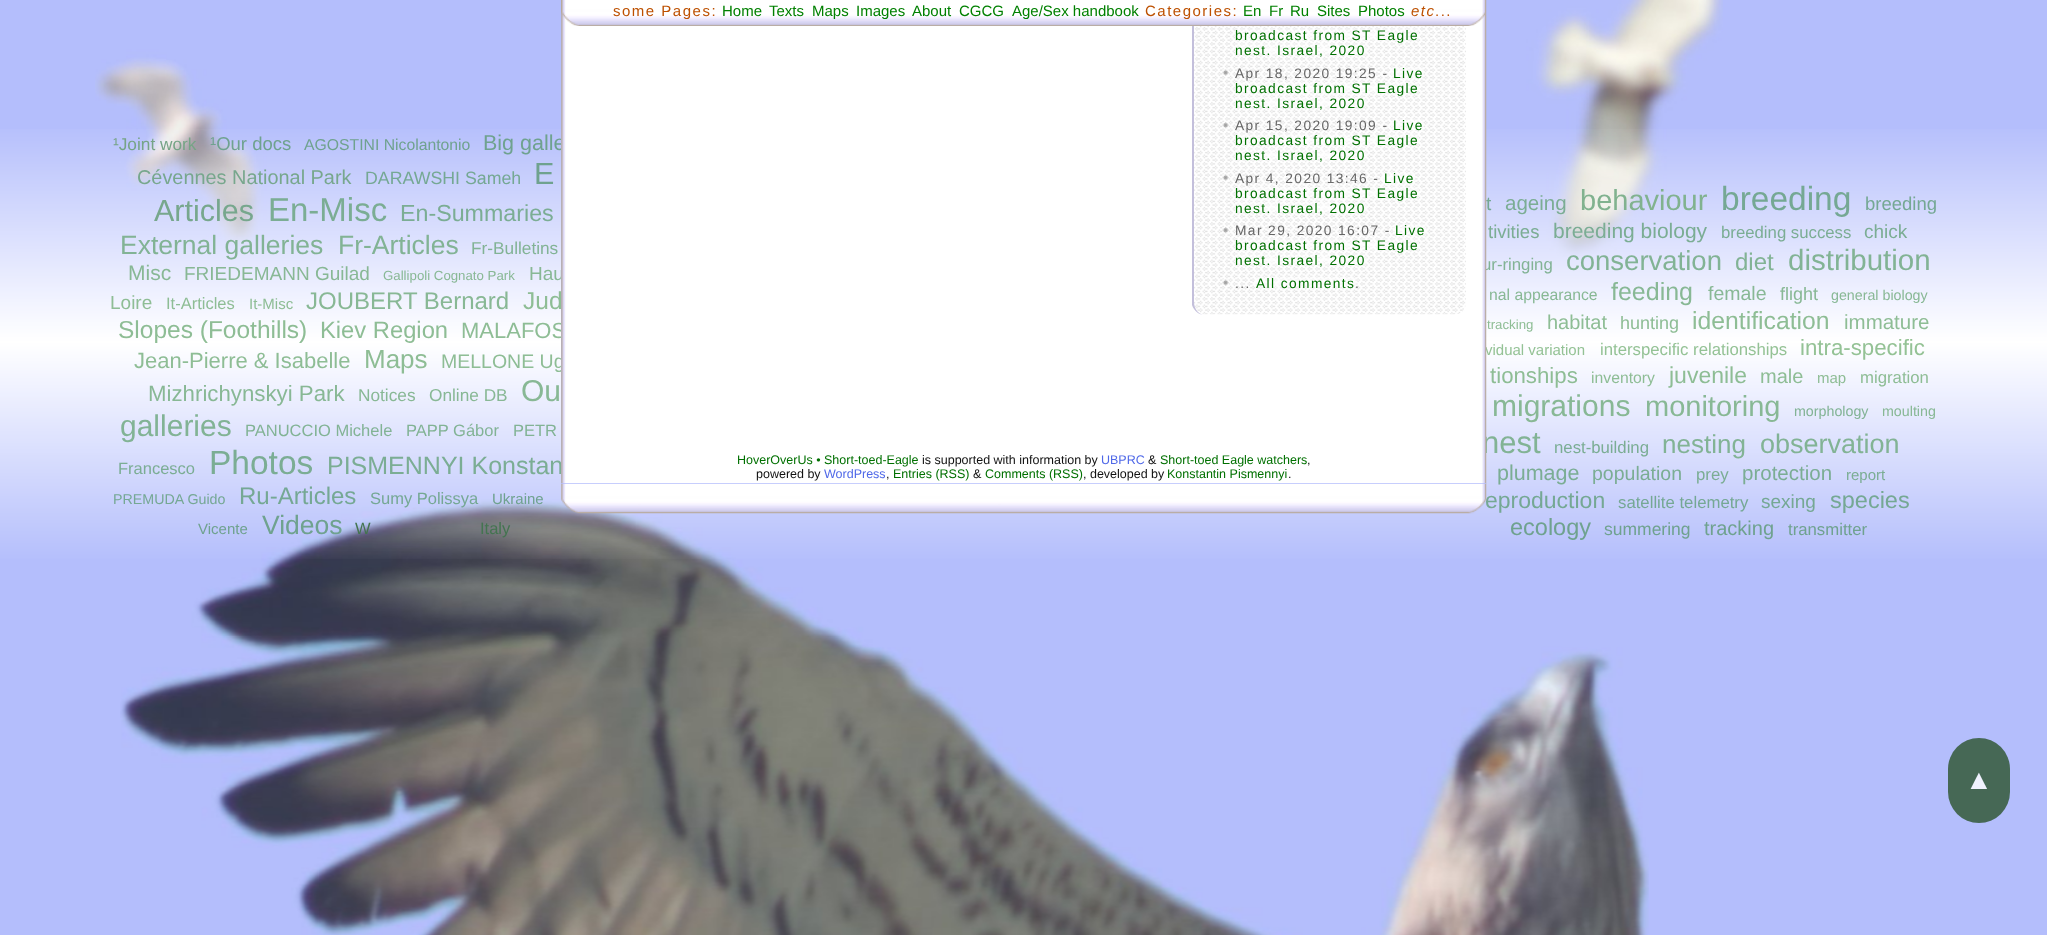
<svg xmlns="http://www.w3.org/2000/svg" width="2047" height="935">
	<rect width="100%" height="100%" fill="#B4BEFC" />
	<image x="120" y="499" width="1529" height="436" href="assets/img1.png" />
	<image x="95" y="0" width="1628" height="257" href="assets/img2.png" />
	<image x="0" y="129" width="2047" height="430" href="assets/img3.png" />
	<text x="113" y="150" font-family="Liberation Sans" font-size="17.25" fill="#76A486">¹Joint work</text>
	<text x="210" y="150" font-family="Liberation Sans" font-size="18.5" fill="#6FA28F">¹Our docs</text>
	<text x="304" y="150" font-family="Liberation Sans" font-size="15.75" fill="#6FA28F">AGOSTINI Nicolantonio</text>
	<text x="483" y="150" font-family="Liberation Sans" font-size="21.5" fill="#6FA28F">Big galle</text>
	<text x="137" y="184" font-family="Liberation Sans" font-size="19.9" fill="#77A78D">Cévennes National Park</text>
	<text x="365" y="184" font-family="Liberation Sans" font-size="17.75" fill="#75A894">DARAWSHI Sameh</text>
	<text x="534" y="184" font-family="Liberation Sans" font-size="30.5" fill="#6FA28F">E</text>
	<text x="154" y="221" font-family="Liberation Sans" font-size="30.5" fill="#77A78D">Articles</text>
	<text x="268" y="221" font-family="Liberation Sans" font-size="33" fill="#7BAD94">En-Misc</text>
	<text x="400" y="221" font-family="Liberation Sans" font-size="23.25" fill="#7BAD94">En-Summaries</text>
	<g font-family="Liberation Sans" font-size="26.5" fill="#82B395">
		<text x="120" y="254">External galleries</text>
		<text x="338" y="254">Fr-Articles</text>
	</g>
	<text x="471" y="254" font-family="Liberation Sans" font-size="17.25" fill="#82B395">Fr-Bulletins</text>
	<text x="128" y="280" font-family="Liberation Sans" font-size="21" fill="#88B895">Misc</text>
	<text x="184" y="280" font-family="Liberation Sans" font-size="19" fill="#88B895">FRIEDEMANN Guilad</text>
	<text x="383" y="280" font-family="Liberation Sans" font-size="13.25" fill="#88B895">Gallipoli Cognato Park</text>
	<text x="529" y="280" font-family="Liberation Sans" font-size="19" fill="#88B895">Hau</text>
	<text x="110" y="309" font-family="Liberation Sans" font-size="19" fill="#8EBD95">Loire</text>
	<text x="166" y="309" font-family="Liberation Sans" font-size="16.5" fill="#8EBD95">It-Articles</text>
	<text x="249" y="309" font-family="Liberation Sans" font-size="15" fill="#8EBD95">It-Misc</text>
	<text x="306" y="309" font-family="Liberation Sans" font-size="24" fill="#88B895">JOUBERT Bernard</text>
	<g font-family="Liberation Sans" font-size="24.5" fill="#8EBD95">
		<text x="523" y="309">Jud</text>
		<text x="118" y="338">Slopes (Foothills)</text>
	</g>
	<text x="320" y="338" font-family="Liberation Sans" font-size="23.75" fill="#8EBD95">Kiev Region</text>
	<g font-family="Liberation Sans" font-size="22" fill="#8EBD95">
		<text x="461" y="338">MALAFOS</text>
		<text x="134" y="368">Jean-Pierre &amp; Isabelle</text>
	</g>
	<text x="364" y="368" font-family="Liberation Sans" font-size="26" fill="#8EBD95">Maps</text>
	<text x="441" y="368" font-family="Liberation Sans" font-size="19.5" fill="#8EBD95">MELLONE Ug</text>
	<text x="148" y="401" font-family="Liberation Sans" font-size="22.25" fill="#88B895">Mizhrichynskyi Park</text>
	<g font-family="Liberation Sans" font-size="17.25" fill="#88B895">
		<text x="358" y="401">Notices</text>
		<text x="429" y="401">Online DB</text>
	</g>
	<text x="521" y="401" font-family="Liberation Sans" font-size="30" fill="#88B895">Ou</text>
	<text x="120" y="436" font-family="Liberation Sans" font-size="30" fill="#82B395">galleries</text>
	<g font-family="Liberation Sans" font-size="16.5" fill="#82B395">
		<text x="245" y="436">PANUCCIO Michele</text>
		<text x="406" y="436">PAPP Gábor</text>
		<text x="513" y="436">PETR</text>
	</g>
	<text x="118" y="474" font-family="Liberation Sans" font-size="16.5" fill="#7BAD94">Francesco</text>
	<text x="209" y="474" font-family="Liberation Sans" font-size="33.5" fill="#7BAD94">Photos</text>
	<text x="327" y="474" font-family="Liberation Sans" font-size="25" fill="#7BAD94">PISMENNYI Konstan</text>
	<text x="113" y="504" font-family="Liberation Sans" font-size="14.25" fill="#75A894">PREMUDA Guido</text>
	<text x="239" y="504" font-family="Liberation Sans" font-size="24" fill="#75A894">Ru-Articles</text>
	<text x="370" y="504" font-family="Liberation Sans" font-size="16.5" fill="#75A894">Sumy Polissya</text>
	<g font-family="Liberation Sans" font-size="15" fill="#6FA28F">
		<text x="492" y="504">Ukraine</text>
		<text x="198" y="534">Vicente</text>
	</g>
	<text x="262" y="534" font-family="Liberation Sans" font-size="26.5" fill="#6FA28F">Videos</text>
	<g font-family="Liberation Sans" font-size="16.5" fill="#447450">
		<text x="355" y="534">W</text>
		<text x="480" y="534">Italy</text>
	</g>
	<text x="1482" y="270" font-family="Liberation Sans" font-size="16.75" fill="#82B395">ur-ringing</text>
	<text x="1485" y="355" font-family="Liberation Sans" font-size="15" fill="#94C295">vidual variation</text>
	<text x="1482" y="453" font-family="Liberation Sans" font-size="31" fill="#82B395">nest</text>
	<text x="1485" y="508" font-family="Liberation Sans" font-size="23" fill="#75A894">eproduction</text>
	<image x="561" y="483" width="926" height="31" href="assets/img15.png" />
	<rect x="561" y="129" width="925" height="355" fill="#B4BEFC" />
	<text x="1486" y="210" font-family="Liberation Sans" font-size="19" fill="#75A894">t</text>
	<text x="1487" y="329" font-family="Liberation Sans" font-size="13.25" fill="#8EBD95">tracking</text>
	<image x="561" y="0" width="926" height="484" href="assets/img4.png" />
	<image x="1193" y="26" width="274" height="289" href="assets/img6.png" />
	<path d="M1468-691C1466-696 1461-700 1455-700C1461-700 1466-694 1466-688V302C1466 309 1461 315 1455 315C1461 315 1466 311 1468 305Z" fill="#FFFFFF" />
	<path d="M1205-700C1199-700 1194-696 1192-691V305C1194 311 1199 315 1205 315C1199 315 1194 309 1194 302V-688C1194-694 1199-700 1205-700Z" fill="#C3BFDB" />
	<image x="561" y="0" width="924" height="26" href="assets/img5.png" />
	<text x="613" y="16" font-family="Liberation Sans" font-size="15" letter-spacing="1.5" fill="#BD5000">some Pages:</text>
	<g font-family="Liberation Sans" font-size="15" fill="#008000">
		<text x="722" y="16">Home</text>
		<text x="769" y="16">Texts</text>
		<text x="812" y="16">Maps</text>
		<text x="856" y="16">Images</text>
		<text x="912" y="16">About</text>
		<text x="959" y="16">CGCG</text>
		<text x="1012" y="16">Age/Sex handbook</text>
	</g>
	<text x="1145" y="16" font-family="Liberation Sans" font-size="15" letter-spacing="1.5" fill="#BD5000">Categories:</text>
	<g font-family="Liberation Sans" font-size="15" fill="#008000">
		<text x="1243" y="16">En</text>
		<text x="1269" y="16">Fr</text>
		<text x="1290" y="16">Ru</text>
		<text x="1317" y="16">Sites</text>
		<text x="1358" y="16">Photos</text>
	</g>
	<text x="1411" y="16" font-family="Liberation Sans" font-size="15" font-style="italic" letter-spacing="1.5" fill="#BD5000">etc</text>
	<text x="1435" y="16" font-family="Liberation Sans" font-size="15" letter-spacing="1.5" fill="#BD5000">...</text>
	<image x="1235" y="26" width="188" height="31" href="assets/img7.png" />
	<g font-family="Liberation Sans" font-size="13.75" letter-spacing="1.4" fill="#007000">
		<text x="1235" y="40">broadcast from ST Eagle</text>
		<text x="1235" y="55">nest. Israel, 2020</text>
	</g>
	<image x="1222" y="69" width="7" height="7" href="assets/img8.png" />
	<text x="1235" y="78" font-family="Liberation Sans" font-size="13.75" letter-spacing="1.4" fill="#666666">Apr 18, 2020 19:25 -</text>
	<image x="1235" y="66" width="189" height="43" href="assets/img9.png" />
	<g font-family="Liberation Sans" font-size="13.75" letter-spacing="1.4" fill="#007000">
		<text x="1393" y="78">Live</text>
		<text x="1235" y="93">broadcast from ST Eagle</text>
		<text x="1235" y="108">nest. Israel, 2020</text>
	</g>
	<image x="1222" y="122" width="7" height="7" href="assets/img10.png" />
	<text x="1235" y="130" font-family="Liberation Sans" font-size="13.75" letter-spacing="1.4" fill="#666666">Apr 15, 2020 19:09 -</text>
	<image x="1235" y="119" width="189" height="43" href="assets/img11.png" />
	<g font-family="Liberation Sans" font-size="13.75" letter-spacing="1.4" fill="#007000">
		<text x="1393" y="130">Live</text>
		<text x="1235" y="145">broadcast from ST Eagle</text>
		<text x="1235" y="160">nest. Israel, 2020</text>
	</g>
	<image x="1222" y="174" width="7" height="7" href="assets/img8.png" />
	<text x="1235" y="183" font-family="Liberation Sans" font-size="13.75" letter-spacing="1.4" fill="#666666">Apr 4, 2020 13:46 -</text>
	<image x="1235" y="171" width="184" height="43" href="assets/img12.png" />
	<g font-family="Liberation Sans" font-size="13.75" letter-spacing="1.4" fill="#007000">
		<text x="1384" y="183">Live</text>
		<text x="1235" y="198">broadcast from ST Eagle</text>
		<text x="1235" y="213">nest. Israel, 2020</text>
	</g>
	<image x="1222" y="227" width="7" height="7" href="assets/img10.png" />
	<text x="1235" y="235" font-family="Liberation Sans" font-size="13.75" letter-spacing="1.4" fill="#666666">Mar 29, 2020 16:07 -</text>
	<image x="1235" y="224" width="191" height="43" href="assets/img13.png" />
	<g font-family="Liberation Sans" font-size="13.75" letter-spacing="1.4" fill="#007000">
		<text x="1395" y="235">Live</text>
		<text x="1235" y="250">broadcast from ST Eagle</text>
		<text x="1235" y="265">nest. Israel, 2020</text>
	</g>
	<image x="1222" y="279" width="7" height="7" href="assets/img8.png" />
	<image x="1254" y="276" width="103" height="13" href="assets/img14.png" />
	<text x="1235" y="288" font-family="Liberation Sans" font-size="13.75" letter-spacing="1.4" fill="#666666">...</text>
	<text x="1256" y="288" font-family="Liberation Sans" font-size="13.75" letter-spacing="1.4" fill="#007000">All comments</text>
	<text x="1355" y="288" font-family="Liberation Sans" font-size="13.75" letter-spacing="1.4" fill="#666666">.</text>
	<text x="737" y="464" font-family="Liberation Sans" font-size="12.5" fill="#007000">HoverOverUs • Short-toed-Eagle</text>
	<text x="922" y="464" font-family="Liberation Sans" font-size="12.5" fill="#111111">is supported with information by</text>
	<text x="1101" y="464" font-family="Liberation Sans" font-size="12.5" fill="#4F68E8">UBPRC</text>
	<text x="1148" y="464" font-family="Liberation Sans" font-size="12.5" fill="#111111">&amp;</text>
	<text x="1160" y="464" font-family="Liberation Sans" font-size="12.5" fill="#007000">Short-toed Eagle watchers</text>
	<g font-family="Liberation Sans" font-size="12.5" fill="#111111">
		<text x="1307" y="464">,</text>
		<text x="756" y="478">powered by</text>
	</g>
	<text x="824" y="478" font-family="Liberation Sans" font-size="12.5" fill="#4F68E8">WordPress</text>
	<text x="886" y="478" font-family="Liberation Sans" font-size="12.5" fill="#111111">,</text>
	<text x="893" y="478" font-family="Liberation Sans" font-size="12.5" fill="#007000">Entries (RSS)</text>
	<text x="973" y="478" font-family="Liberation Sans" font-size="12.5" fill="#111111">&amp;</text>
	<text x="985" y="478" font-family="Liberation Sans" font-size="12.5" fill="#007000">Comments (RSS)</text>
	<text x="1083" y="478" font-family="Liberation Sans" font-size="12.5" fill="#111111">, developed by</text>
	<text x="1167" y="478" font-family="Liberation Sans" font-size="12.5" fill="#007000">Konstantin Pismennyi</text>
	<text x="1288" y="478" font-family="Liberation Sans" font-size="12.5" fill="#111111">.</text>
	<text x="1505" y="210" font-family="Liberation Sans" font-size="20.5" fill="#7BAD94">ageing</text>
	<text x="1580" y="210" font-family="Liberation Sans" font-size="29" fill="#81B28F">behaviour</text>
	<text x="1721" y="210" font-family="Liberation Sans" font-size="33.5" fill="#75A894">breeding</text>
	<text x="1865" y="210" font-family="Liberation Sans" font-size="18.5" fill="#75A894">breeding</text>
	<text x="1488" y="238" font-family="Liberation Sans" font-size="18.5" fill="#7BAD94">tivities</text>
	<text x="1553" y="238" font-family="Liberation Sans" font-size="21" fill="#7BAD94">breeding biology</text>
	<text x="1721" y="238" font-family="Liberation Sans" font-size="16.75" fill="#7BAD94">breeding success</text>
	<text x="1864" y="238" font-family="Liberation Sans" font-size="19" fill="#7BAD94">chick</text>
	<text x="1566" y="270" font-family="Liberation Sans" font-size="27.5" fill="#82B395">conservation</text>
	<text x="1735" y="270" font-family="Liberation Sans" font-size="24" fill="#82B395">diet</text>
	<text x="1788" y="270" font-family="Liberation Sans" font-size="29.5" fill="#82B395">distribution</text>
	<text x="1489" y="300" font-family="Liberation Sans" font-size="15.75" fill="#88B895">nal appearance</text>
	<text x="1611" y="300" font-family="Liberation Sans" font-size="25" fill="#88B895">feeding</text>
	<text x="1708" y="300" font-family="Liberation Sans" font-size="19.5" fill="#88B895">female</text>
	<text x="1780" y="300" font-family="Liberation Sans" font-size="18" fill="#88B895">flight</text>
	<text x="1831" y="300" font-family="Liberation Sans" font-size="14.25" fill="#88B895">general biology</text>
	<text x="1547" y="329" font-family="Liberation Sans" font-size="20" fill="#8EBD95">habitat</text>
	<text x="1620" y="329" font-family="Liberation Sans" font-size="18" fill="#8EBD95">hunting</text>
	<text x="1692" y="329" font-family="Liberation Sans" font-size="24.75" fill="#8EBD95">identification</text>
	<text x="1844" y="329" font-family="Liberation Sans" font-size="20.5" fill="#8EBD95">immature</text>
	<text x="1600" y="355" font-family="Liberation Sans" font-size="16.75" fill="#94C295">interspecific relationships</text>
	<text x="1800" y="355" font-family="Liberation Sans" font-size="22.25" fill="#94C295">intra-specific</text>
	<text x="1490" y="383" font-family="Liberation Sans" font-size="22.25" fill="#8EBD95">tionships</text>
	<text x="1591" y="383" font-family="Liberation Sans" font-size="15.75" fill="#8EBD95">inventory</text>
	<text x="1669" y="383" font-family="Liberation Sans" font-size="23" fill="#8EBD95">juvenile</text>
	<text x="1760" y="383" font-family="Liberation Sans" font-size="20" fill="#8EBD95">male</text>
	<text x="1817" y="383" font-family="Liberation Sans" font-size="15" fill="#8EBD95">map</text>
	<text x="1860" y="383" font-family="Liberation Sans" font-size="16.75" fill="#8EBD95">migration</text>
	<text x="1492" y="416" font-family="Liberation Sans" font-size="30" fill="#88B895">migrations</text>
	<text x="1645" y="416" font-family="Liberation Sans" font-size="29" fill="#88B895">monitoring</text>
	<text x="1794" y="416" font-family="Liberation Sans" font-size="14.25" fill="#82B395">morphology</text>
	<text x="1882" y="416" font-family="Liberation Sans" font-size="14.25" fill="#88B895">moulting</text>
	<text x="1554" y="453" font-family="Liberation Sans" font-size="16.75" fill="#7BAD94">nest-building</text>
	<text x="1662" y="453" font-family="Liberation Sans" font-size="26" fill="#82B395">nesting</text>
	<text x="1760" y="453" font-family="Liberation Sans" font-size="27" fill="#82B395">observation</text>
	<text x="1497" y="480" font-family="Liberation Sans" font-size="21.5" fill="#7BAD94">plumage</text>
	<text x="1592" y="480" font-family="Liberation Sans" font-size="19.5" fill="#7BAD94">population</text>
	<text x="1696" y="480" font-family="Liberation Sans" font-size="16.75" fill="#7BAD94">prey</text>
	<text x="1742" y="480" font-family="Liberation Sans" font-size="20.5" fill="#7BAD94">protection</text>
	<text x="1846" y="480" font-family="Liberation Sans" font-size="15" fill="#7BAD94">report</text>
	<text x="1618" y="508" font-family="Liberation Sans" font-size="16.75" fill="#75A894">satellite telemetry</text>
	<text x="1761" y="508" font-family="Liberation Sans" font-size="19" fill="#75A894">sexing</text>
	<text x="1830" y="508" font-family="Liberation Sans" font-size="23.5" fill="#75A894">species</text>
	<text x="1510" y="535" font-family="Liberation Sans" font-size="23.5" fill="#6FA28F">ecology</text>
	<text x="1604" y="535" font-family="Liberation Sans" font-size="17.5" fill="#6FA28F">summering</text>
	<text x="1704" y="535" font-family="Liberation Sans" font-size="20" fill="#6FA28F">tracking</text>
	<text x="1788" y="535" font-family="Liberation Sans" font-size="16.75" fill="#6FA28F">transmitter</text>
	<rect x="1948" y="738" width="62" height="85" rx="31" fill="#466855" />
	<text x="1965" y="789" font-family="Liberation Sans" font-size="28" fill="#F0F2FE">▲</text>
</svg>
